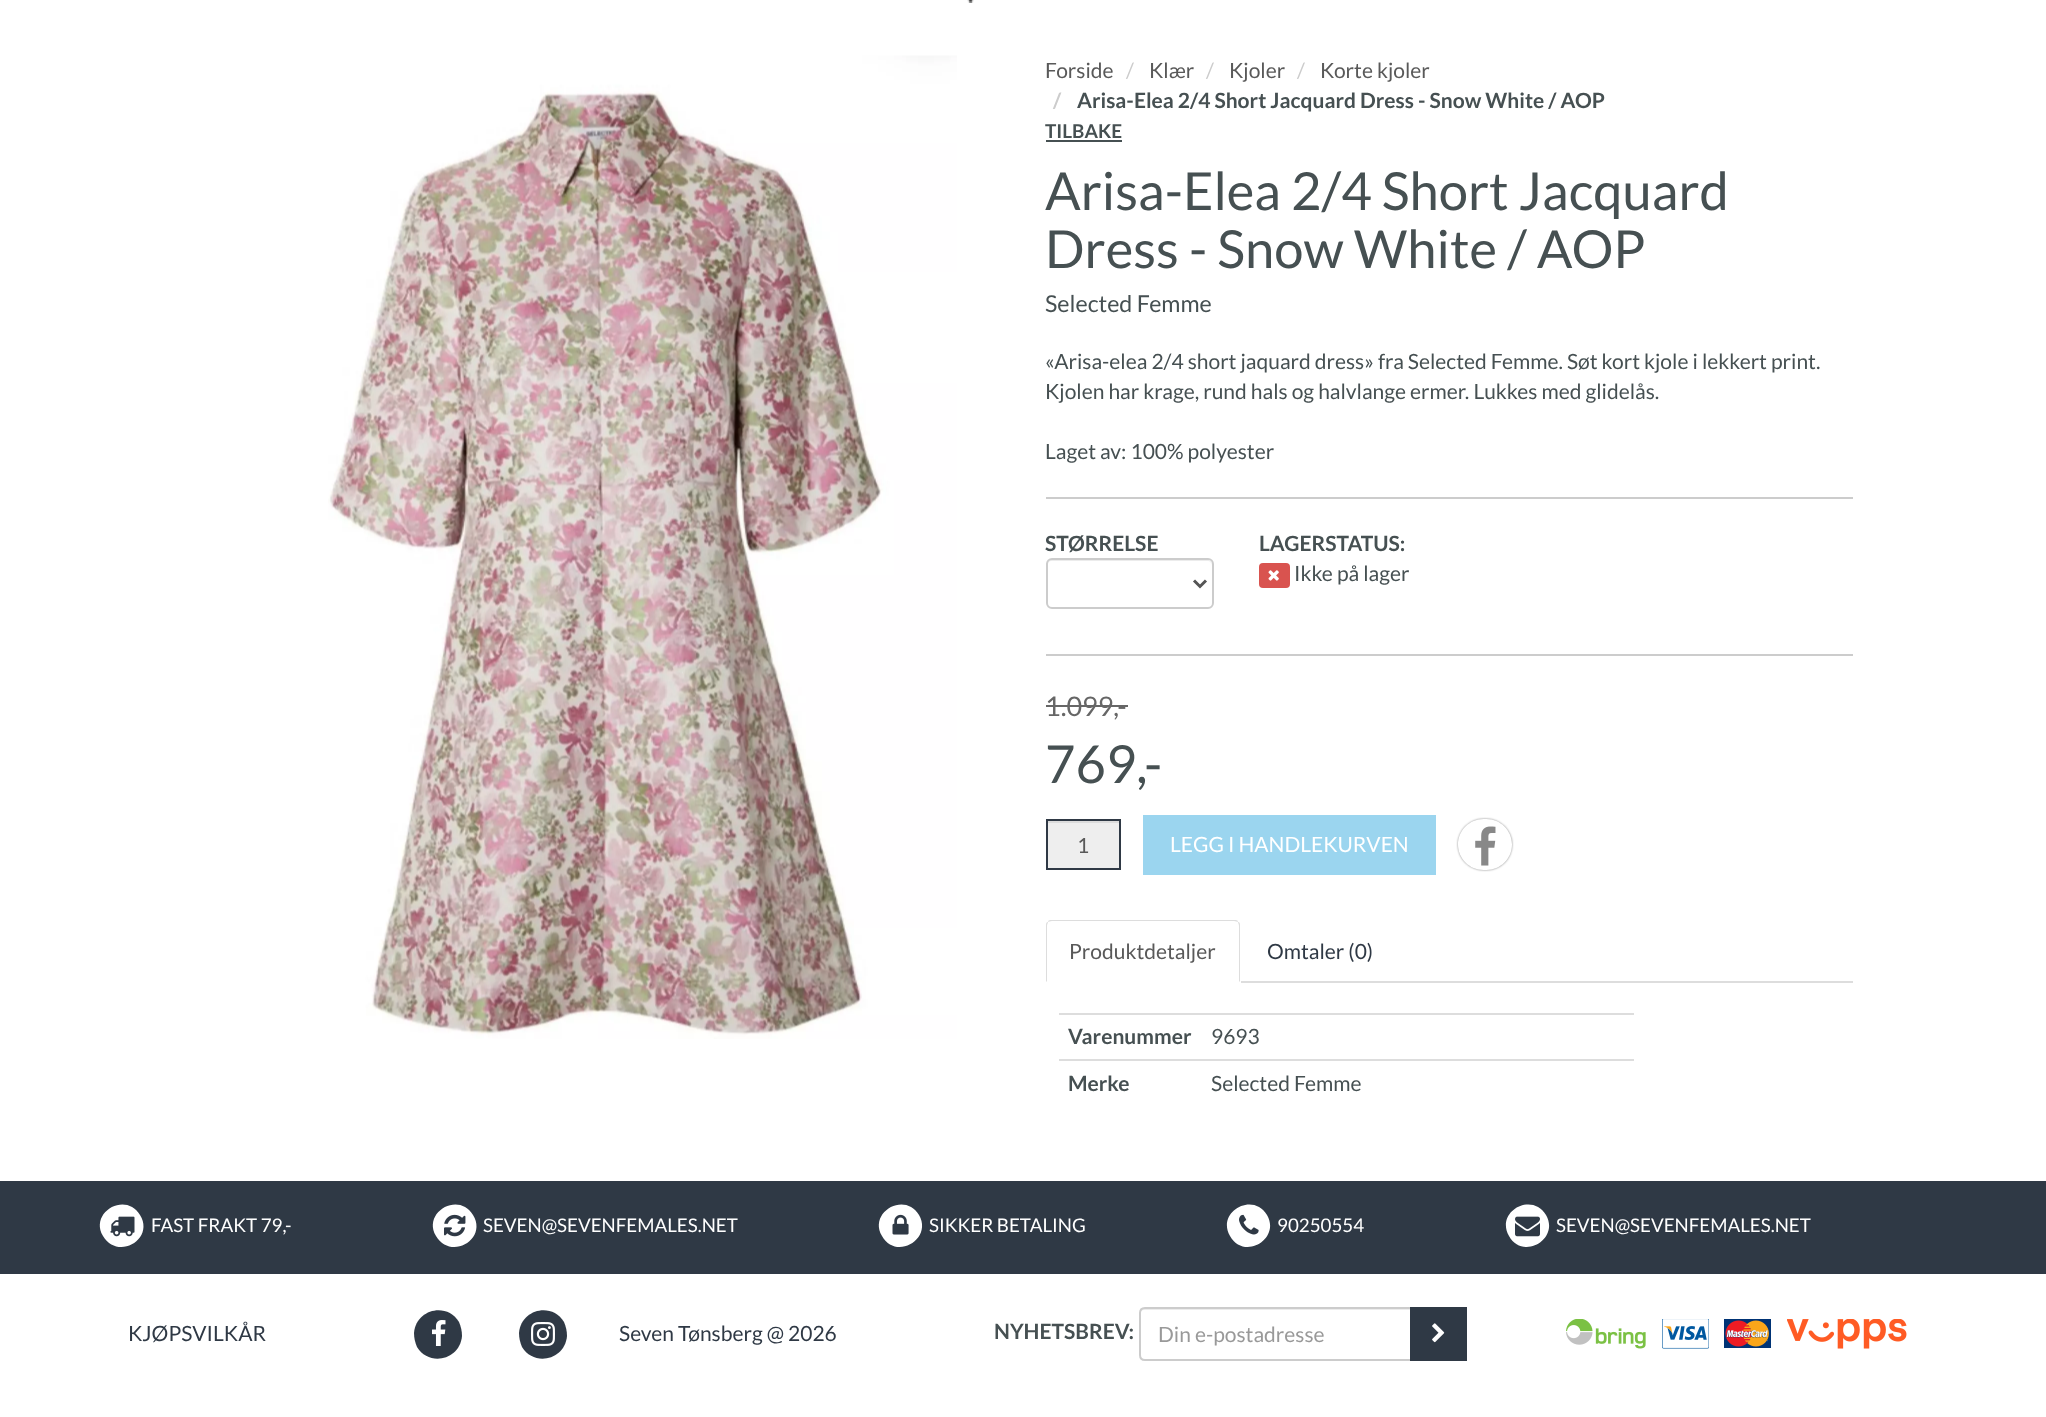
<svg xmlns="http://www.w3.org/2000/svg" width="2046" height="1417">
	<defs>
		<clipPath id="clip1"><path d="M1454 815H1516V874H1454ZM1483.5 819H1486.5C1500.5 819 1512 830.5 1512 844.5C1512 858.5 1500.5 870 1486.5 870H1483.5C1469.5 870 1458 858.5 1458 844.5C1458 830.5 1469.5 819 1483.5 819Z" clip-rule="evenodd" /></clipPath>
	</defs>
	<rect width="100%" height="100%" fill="#FFFFFF" />
	<image x="967" y="0" width="7" height="3" href="assets/img1.png" />
	<image x="328" y="55" width="629" height="984" href="assets/img2.png" />
	<text x="1045" y="78" font-family="Lato" font-size="21" fill="#595959">Forside</text>
	<text x="1126" y="78" font-family="Lato" font-size="21" fill="#CCCCCC">/</text>
	<text x="1149" y="78" font-family="Lato" font-size="21" fill="#595959">Klær</text>
	<text x="1206" y="78" font-family="Lato" font-size="21" fill="#CCCCCC">/</text>
	<text x="1229" y="78" font-family="Lato" font-size="21" fill="#595959">Kjoler</text>
	<text x="1297" y="78" font-family="Lato" font-size="21" fill="#CCCCCC">/</text>
	<text x="1320" y="78" font-family="Lato" font-size="21" fill="#595959">Korte kjoler</text>
	<text x="1053" y="108" font-family="Lato" font-size="21" font-weight="700" fill="#CCCCCC">/</text>
	<text x="1077" y="108" font-family="Lato" font-size="21" font-weight="700" fill="#465052">Arisa-Elea 2/4 Short Jacquard Dress - Snow White / AOP</text>
	<text x="1045" y="138" font-family="Lato" font-size="19" font-weight="700" fill="#465052">TILBAKE</text>
	<rect x="1046" y="140" width="76" height="2" fill="#465052" />
	<g font-family="Lato" font-size="52.5" fill="#465052">
		<text x="1045" y="210">Arisa-Elea 2/4 Short Jacquard</text>
		<text x="1045" y="268">Dress - Snow White / AOP</text>
	</g>
	<text x="1045" y="312" font-family="Lato" font-size="23.25" fill="#465052">Selected Femme</text>
	<g font-family="Lato" font-size="21" fill="#465052">
		<text x="1045" y="369">«Arisa-elea 2/4 short jaquard dress» fra Selected Femme. Søt kort kjole i lekkert print.</text>
		<text x="1045" y="399">Kjolen har krage, rund hals og halvlange ermer. Lukkes med glidelås.</text>
		<text x="1045" y="459">Laget av: 100% polyester</text>
	</g>
	<rect x="1046" y="497" width="807" height="2" fill="#CCCCCC" />
	<text x="1045" y="551" font-family="Lato" font-size="21" font-weight="700" fill="#465052">STØRRELSE</text>
	<path d="M1052 561H1208C1210 561 1212 563 1212 566V565C1212 562 1210 560 1207 560H1052C1049 560 1047 562 1047 565V566C1047 563 1049 561 1052 561Z" fill="#ECECEC" />
	<rect x="1047" y="559" width="166" height="49" rx="5" fill="none" stroke="#CCCCCC" stroke-width="2" />
	<path d="M1194 580.5L1200 586.5L1206 580.5" fill="none" stroke="#555555" stroke-width="3" />
	<text x="1259" y="551" font-family="Lato" font-size="21" font-weight="700" fill="#465052">LAGERSTATUS:</text>
	<rect x="1259" y="563" width="31" height="25" rx="4" fill="#D9534F" />
	<image x="1268" y="570" width="11" height="11" href="assets/img3.png" />
	<text x="1294" y="581" font-family="Lato" font-size="21" fill="#465052">Ikke på lager</text>
	<rect x="1046" y="654" width="807" height="2" fill="#CCCCCC" />
	<text x="1045" y="716" font-family="Lato" font-size="27" fill="#666666">1.099,-</text>
	<rect x="1046" y="705" width="82" height="2" fill="#666666" />
	<text x="1045" y="783" font-family="Lato" font-size="52.5" fill="#465052">769,-</text>
	<rect x="1048" y="823" width="71" height="45" fill="#EEEEEE" />
	<rect x="1047" y="821" width="72" height="2" fill="#DCDCDC" />
	<rect x="1047" y="820" width="73" height="49" fill="none" stroke="#2F3945" stroke-width="2" />
	<text x="1077" y="853" font-family="Lato" font-size="21" fill="#595959">1</text>
	<rect x="1143" y="815" width="293" height="60" fill="#9BD5EF" />
	<text x="1170" y="852" font-family="Lato" font-size="21" fill="#FFFFFF">LEGG I HANDLEKURVEN</text>
	<g clip-path="url(#clip1)">
		<rect x="1458" y="819" width="54" height="51" rx="25.5" fill="#888888" filter="blur(1px)" />
	</g>
	<image x="1475" y="826" width="21" height="40" href="assets/img4.png" />
	<rect x="1241" y="981" width="612" height="2" fill="#DDDDDD" />
	<path d="M1052 920C1050 920 1048 920 1048 922C1049 922 1050 921 1052 921H1234C1236 921 1237 922 1238 922C1238 920 1236 920 1234 920Z" fill="#DDDDDD" />
	<path d="M1240 982V926C1240 924 1240 922 1238 922C1238 923 1239 924 1239 926V981Z" fill="#DDDDDD" />
	<path d="M1048 922C1046 922 1046 924 1046 926V982L1047 981V926C1047 924 1048 923 1048 922Z" fill="#DDDDDD" />
	<text x="1069" y="959" font-family="Lato" font-size="21" fill="#595959">Produktdetaljer</text>
	<text x="1267" y="959" font-family="Lato" font-size="21" fill="#2F3945">Omtaler (0)</text>
	<text x="1068" y="1044" font-family="Lato" font-size="21" font-weight="700" fill="#465052">Varenummer</text>
	<rect x="1059" y="1013" width="575" height="2" fill="#DDDDDD" />
	<text x="1211" y="1044" font-family="Lato" font-size="21" fill="#465052">9693</text>
	<text x="1068" y="1091" font-family="Lato" font-size="21" font-weight="700" fill="#465052">Merke</text>
	<rect x="1059" y="1059" width="575" height="2" fill="#DDDDDD" />
	<text x="1211" y="1091" font-family="Lato" font-size="21" fill="#465052">Selected Femme</text>
	<rect x="0" y="1181" width="2046" height="93" fill="#2F3945" />
	<path d="M140 1215C155 1239 118 1261 103 1236C89 1212 126 1191 140 1215Z" fill="#FFFFFF" />
	<image x="110" y="1216" width="25" height="21" href="assets/img5.png" />
	<text x="151" y="1232" font-family="Lato" font-size="18.75" fill="#FFFFFF">FAST FRAKT 79,-</text>
	<path d="M473 1215C488 1239 451 1261 436 1236C422 1212 459 1191 473 1215Z" fill="#FFFFFF" />
	<image x="444" y="1214" width="22" height="23" href="assets/img6.png" />
	<text x="483" y="1232" font-family="Lato" font-size="18.75" fill="#FFFFFF">SEVEN@SEVENFEMALES.NET</text>
	<path d="M919 1215C933 1239 896 1261 882 1236C868 1212 905 1191 919 1215Z" fill="#FFFFFF" />
	<image x="892" y="1214" width="17" height="21" href="assets/img7.png" />
	<text x="929" y="1232" font-family="Lato" font-size="18.75" fill="#FFFFFF">SIKKER BETALING</text>
	<path d="M1267 1215C1281 1239 1244 1261 1230 1236C1216 1212 1253 1191 1267 1215Z" fill="#FFFFFF" />
	<image x="1239" y="1214" width="20" height="21" href="assets/img8.png" />
	<text x="1277" y="1232" font-family="Lato" font-size="18.75" fill="#FFFFFF">90250554</text>
	<path d="M1546 1215C1560 1239 1523 1261 1509 1236C1495 1212 1532 1191 1546 1215Z" fill="#FFFFFF" />
	<image x="1515" y="1216" width="25" height="21" href="assets/img9.png" />
	<text x="1556" y="1232" font-family="Lato" font-size="18.75" fill="#FFFFFF">SEVEN@SEVENFEMALES.NET</text>
	<text x="128" y="1341" font-family="Lato" font-size="21" fill="#2F3945">KJØPSVILKÅR</text>
	<path d="M459 1322C461 1327 462 1331 462 1336C460 1360 429 1367 417 1347C415 1342 414 1338 414 1333C416 1309 447 1302 459 1322Z" fill="#2F3945" />
	<image x="432" y="1320" width="14" height="26" href="assets/img10.png" />
	<path d="M564 1322C566 1327 567 1331 567 1336C565 1360 534 1367 522 1347C520 1342 519 1338 519 1333C521 1309 552 1302 564 1322Z" fill="#2F3945" />
	<image x="531" y="1322" width="24" height="24" href="assets/img11.png" />
	<text x="619" y="1341" font-family="Lato" font-size="21" fill="#2F3945">Seven Tønsberg @ 2026</text>
	<text x="994" y="1339" font-family="Lato" font-size="21" font-weight="700" fill="#465052">NYHETSBREV:</text>
	<path d="M1144 1310H1410V1308H1145C1142 1308 1140 1311 1140 1314C1140 1312 1142 1310 1144 1310Z" fill="#ECECEC" />
	<path d="M1145 1308H1411V1360H1145C1142 1360 1140 1358 1140 1355V1313C1140 1310 1142 1308 1145 1308Z" fill="none" stroke="#CCCCCC" stroke-width="2" />
	<text x="1158" y="1342" font-family="Lato" font-size="21" fill="#999999">Din e-postadresse</text>
	<rect x="1410" y="1307" width="57" height="54" fill="#2F3945" />
	<image x="1432" y="1323" width="13" height="20" href="assets/img12.png" />
	<image x="1566" y="1319" width="80" height="30" href="assets/img13.png" />
	<image x="1662" y="1319" width="47" height="30" href="assets/img14.png" />
	<image x="1724" y="1319" width="47" height="29" href="assets/img15.png" />
	<image x="1787" y="1319" width="120" height="30" href="assets/img16.png" />
</svg>
